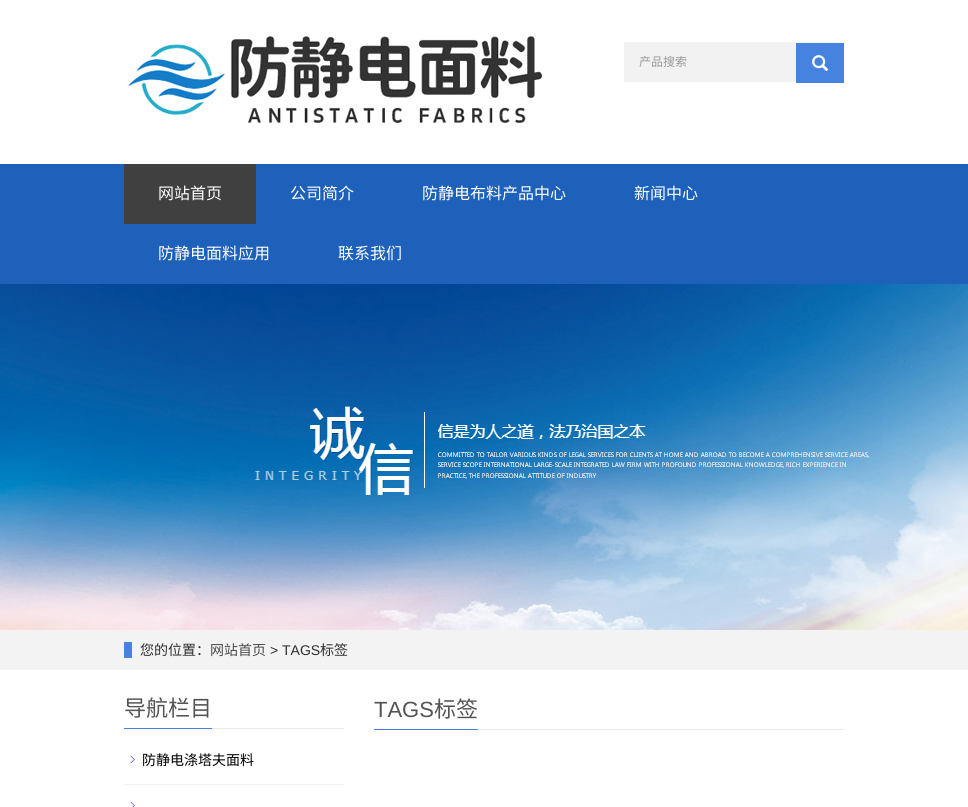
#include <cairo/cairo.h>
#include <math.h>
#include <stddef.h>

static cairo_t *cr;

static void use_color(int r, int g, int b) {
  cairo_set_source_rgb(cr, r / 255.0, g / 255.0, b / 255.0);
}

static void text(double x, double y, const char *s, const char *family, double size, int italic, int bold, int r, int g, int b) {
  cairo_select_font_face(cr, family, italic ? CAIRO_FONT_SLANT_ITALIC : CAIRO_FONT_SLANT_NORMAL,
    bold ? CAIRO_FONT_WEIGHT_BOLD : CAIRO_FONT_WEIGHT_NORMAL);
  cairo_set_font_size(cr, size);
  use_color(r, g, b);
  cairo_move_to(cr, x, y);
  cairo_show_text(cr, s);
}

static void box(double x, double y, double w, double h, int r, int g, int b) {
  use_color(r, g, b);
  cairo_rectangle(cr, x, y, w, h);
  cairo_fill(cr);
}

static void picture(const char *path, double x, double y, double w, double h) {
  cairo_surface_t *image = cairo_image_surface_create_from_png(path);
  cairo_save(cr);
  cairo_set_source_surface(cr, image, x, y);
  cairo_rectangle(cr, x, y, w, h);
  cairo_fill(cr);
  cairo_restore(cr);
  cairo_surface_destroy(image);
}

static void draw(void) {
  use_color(255, 255, 255);
  cairo_paint(cr);
  picture("img_01.png", 128, 36, 414, 87);
  box(624, 42, 220, 40, 242, 242, 242);
  box(796, 43, 48, 40, 70, 130, 224);
  picture("img_02.png", 812, 55, 17, 17);
  box(0, 164, 968, 120, 30, 97, 186);
  box(124, 164, 132, 60, 64, 64, 64);
  picture("img_03.png", 0, 284, 968, 346);
  box(0, 630, 968, 40, 243, 243, 243);
  box(124, 642, 8, 16, 69, 130, 226);
  box(212, 728, 132, 1, 235, 235, 235);
  box(124, 728, 88, 1, 69, 130, 226);
  picture("img_04.png", 130, 756, 5, 7);
  box(124, 784, 220, 1, 242, 242, 242);
  picture("img_05.png", 130, 802, 5, 5);
  box(478, 729, 366, 1, 235, 235, 235);
  box(374, 729, 104, 1, 69, 130, 226);
  text(639, 66, "产品搜索", "Noto Sans CJK SC", 12, 0, 0, 153, 153, 153);
  text(158, 199, "网站首页", "Noto Sans CJK SC", 16, 0, 0, 255, 255, 255);
  text(290, 199, "公司简介", "Noto Sans CJK SC", 16, 0, 0, 255, 255, 255);
  text(422, 199, "防静电布料产品中心", "Noto Sans CJK SC", 16, 0, 0, 255, 255, 255);
  text(634, 199, "新闻中心", "Noto Sans CJK SC", 16, 0, 0, 255, 255, 255);
  text(158, 259, "防静电面料应用", "Noto Sans CJK SC", 16, 0, 0, 255, 255, 255);
  text(338, 259, "联系我们", "Noto Sans CJK SC", 16, 0, 0, 255, 255, 255);
  text(140, 655, "您的位置：", "Noto Sans CJK SC", 14, 0, 0, 47, 47, 47);
  text(210, 655, "网站首页", "Noto Sans CJK SC", 14, 0, 0, 76, 76, 76);
  text(270, 655, "> TAGS", "Liberation Sans", 14, 0, 0, 47, 47, 47);
  text(320, 655, "标签", "Noto Sans CJK SC", 14, 0, 0, 47, 47, 47);
  text(124, 716, "导航栏目", "Noto Sans CJK SC", 22, 0, 0, 84, 84, 84);
  text(142, 765, "防静电涤塔夫面料", "Noto Sans CJK SC", 14, 0, 0, 0, 0, 0);
  text(374, 717, "TAGS", "Liberation Sans", 22, 0, 0, 84, 84, 84);
  text(434, 717, "标签", "Noto Sans CJK SC", 22, 0, 0, 84, 84, 84);
}

int main(void) {
  cairo_surface_t *surface = cairo_image_surface_create(CAIRO_FORMAT_RGB24, 968, 807);
  cr = cairo_create(surface);
  cairo_font_options_t *options = cairo_font_options_create();
  cairo_font_options_set_hint_metrics(options, CAIRO_HINT_METRICS_OFF);
  cairo_font_options_set_hint_style(options, CAIRO_HINT_STYLE_NONE);
  cairo_set_font_options(cr, options);
  cairo_set_miter_limit(cr, 4);
  draw();
  cairo_surface_write_to_png(surface, "out.png");
  cairo_font_options_destroy(options);
  cairo_destroy(cr);
  cairo_surface_destroy(surface);
  return 0;
}
